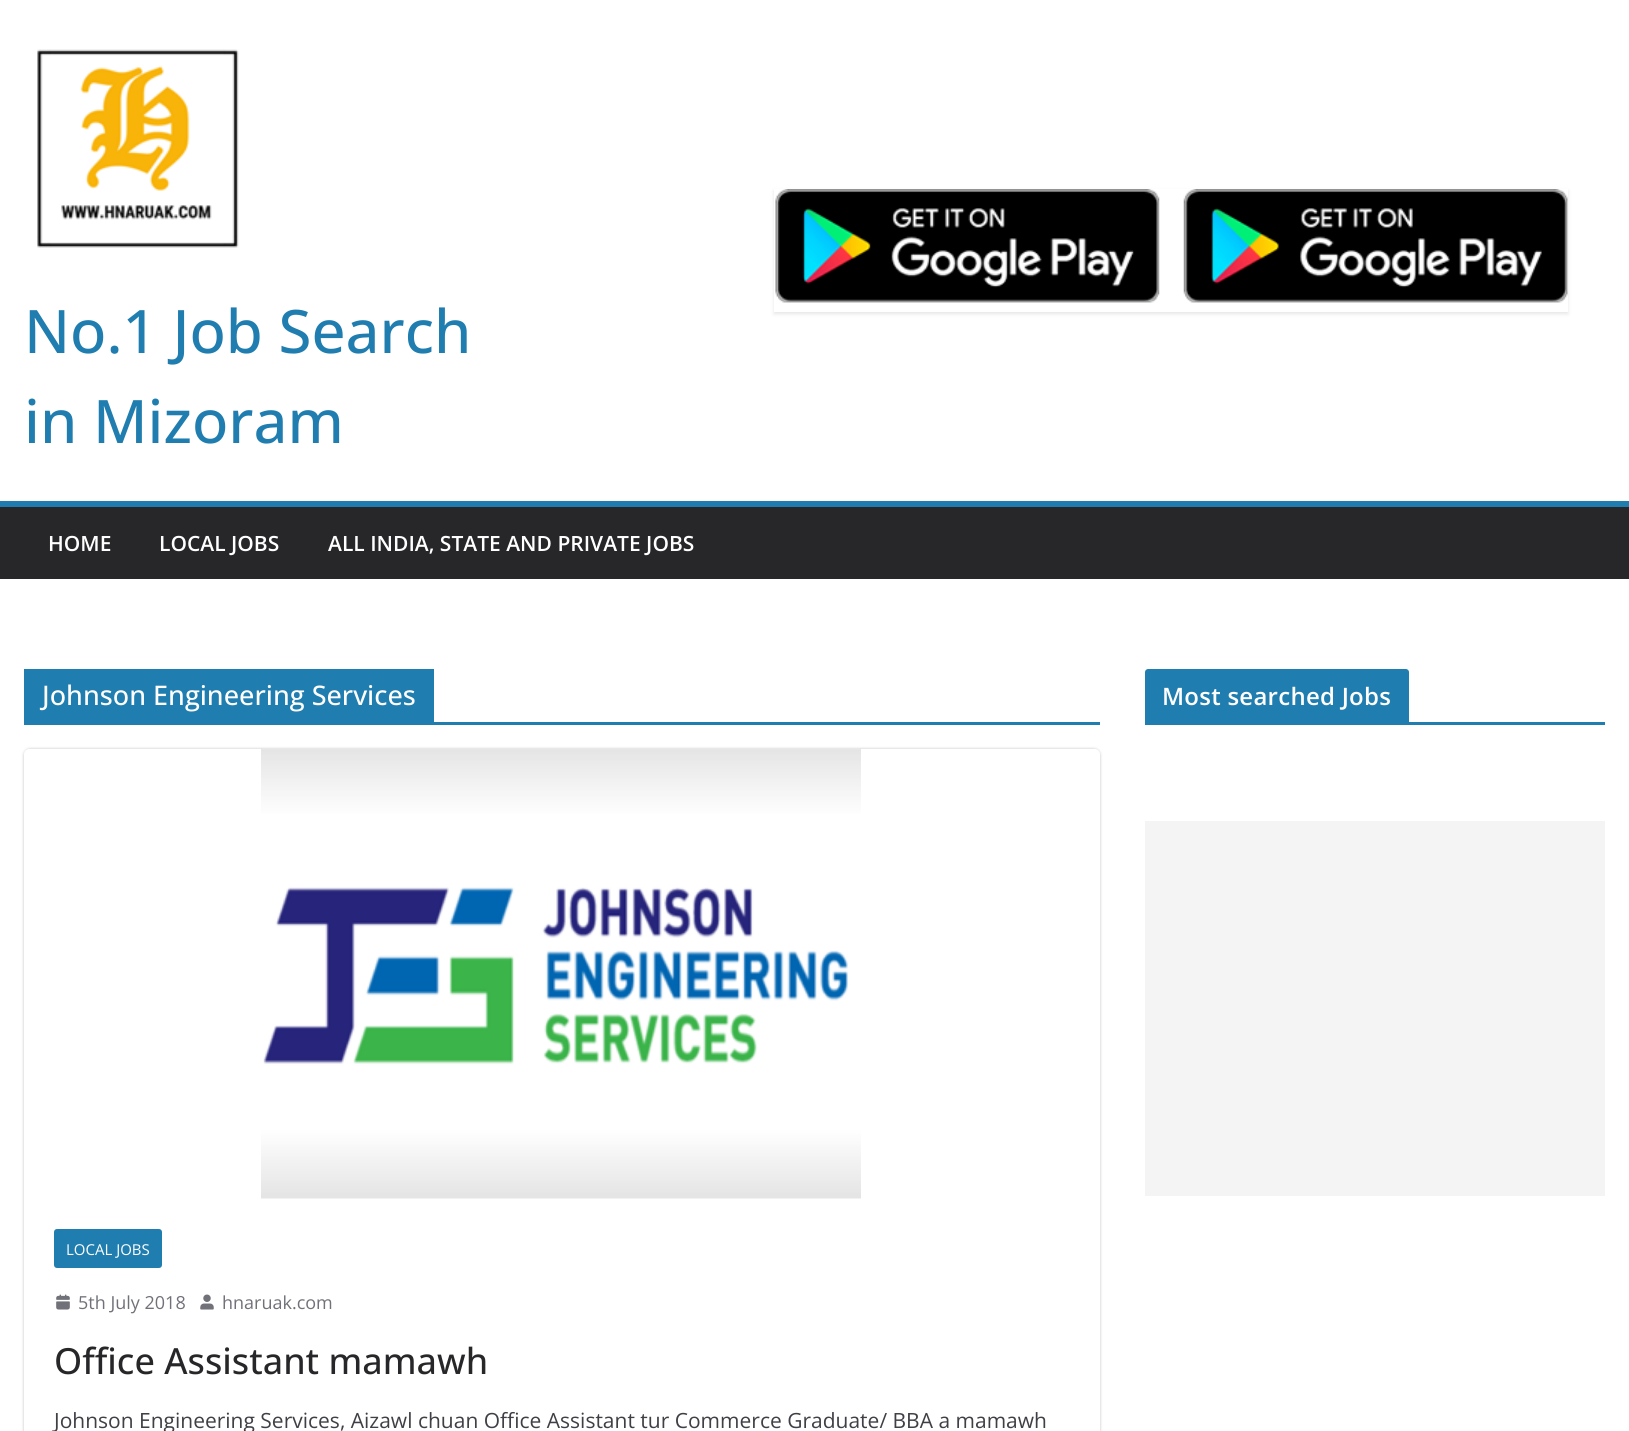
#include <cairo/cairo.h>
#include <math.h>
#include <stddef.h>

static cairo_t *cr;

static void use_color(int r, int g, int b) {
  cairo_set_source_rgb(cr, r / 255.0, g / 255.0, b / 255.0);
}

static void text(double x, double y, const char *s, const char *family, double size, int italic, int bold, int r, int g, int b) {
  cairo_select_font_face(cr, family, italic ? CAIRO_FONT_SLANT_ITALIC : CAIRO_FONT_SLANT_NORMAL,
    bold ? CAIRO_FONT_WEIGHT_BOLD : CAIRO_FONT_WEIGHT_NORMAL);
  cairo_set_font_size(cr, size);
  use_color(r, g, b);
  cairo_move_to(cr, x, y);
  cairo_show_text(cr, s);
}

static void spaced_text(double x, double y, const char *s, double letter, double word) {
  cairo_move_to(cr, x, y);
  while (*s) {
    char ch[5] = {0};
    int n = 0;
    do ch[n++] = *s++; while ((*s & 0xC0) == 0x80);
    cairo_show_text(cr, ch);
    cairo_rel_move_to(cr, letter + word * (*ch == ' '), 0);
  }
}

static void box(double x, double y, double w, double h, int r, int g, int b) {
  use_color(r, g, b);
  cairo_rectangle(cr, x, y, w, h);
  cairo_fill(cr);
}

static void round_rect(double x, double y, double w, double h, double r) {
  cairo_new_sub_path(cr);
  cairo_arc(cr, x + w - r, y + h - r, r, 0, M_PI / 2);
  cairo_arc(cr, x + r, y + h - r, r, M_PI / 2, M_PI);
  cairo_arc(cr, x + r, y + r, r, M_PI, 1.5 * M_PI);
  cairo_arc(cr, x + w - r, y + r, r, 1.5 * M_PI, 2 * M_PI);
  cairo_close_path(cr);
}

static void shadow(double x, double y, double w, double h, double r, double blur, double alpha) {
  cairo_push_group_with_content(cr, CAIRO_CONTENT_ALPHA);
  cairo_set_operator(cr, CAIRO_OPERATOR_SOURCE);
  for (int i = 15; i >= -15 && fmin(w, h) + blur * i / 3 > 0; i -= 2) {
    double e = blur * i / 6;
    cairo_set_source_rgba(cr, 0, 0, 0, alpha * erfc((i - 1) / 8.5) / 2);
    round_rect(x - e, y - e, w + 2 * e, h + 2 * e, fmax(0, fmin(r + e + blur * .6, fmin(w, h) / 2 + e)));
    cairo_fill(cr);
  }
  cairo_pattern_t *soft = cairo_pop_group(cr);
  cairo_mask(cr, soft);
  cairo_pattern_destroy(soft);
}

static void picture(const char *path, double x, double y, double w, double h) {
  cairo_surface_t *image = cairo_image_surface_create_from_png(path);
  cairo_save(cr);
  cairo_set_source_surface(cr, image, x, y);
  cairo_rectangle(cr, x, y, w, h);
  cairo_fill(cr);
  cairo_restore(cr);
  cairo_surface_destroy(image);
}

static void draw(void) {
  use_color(255, 255, 255);
  cairo_paint(cr);
  cairo_save(cr);
  cairo_set_fill_rule(cr, CAIRO_FILL_RULE_EVEN_ODD);
  cairo_new_path(cr);
  cairo_move_to(cr, 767, 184);
  cairo_line_to(cr, 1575, 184);
  cairo_line_to(cr, 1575, 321);
  cairo_line_to(cr, 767, 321);
  cairo_close_path(cr);
  cairo_move_to(cr, 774, 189);
  cairo_line_to(cr, 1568, 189);
  cairo_line_to(cr, 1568, 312);
  cairo_line_to(cr, 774, 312);
  cairo_close_path(cr);
  cairo_clip(cr);
  use_color(0, 0, 0);
  shadow(774, 191, 794, 123, 0, 2, 0.1);
  cairo_restore(cr);
  picture("img_01.png", 775, 189, 793, 114);
  picture("img_02.png", 37, 49, 202, 199);
  box(0, 507, 1629, 72, 39, 39, 42);
  box(0, 501, 1629, 6, 32, 125, 175);
  box(24, 722, 1076, 3, 32, 125, 175);
  box(24, 669, 410, 53, 32, 125, 175);
  cairo_save(cr);
  cairo_set_fill_rule(cr, CAIRO_FILL_RULE_EVEN_ODD);
  cairo_new_path(cr);
  cairo_move_to(cr, 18, 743);
  cairo_line_to(cr, 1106, 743);
  cairo_line_to(cr, 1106, 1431);
  cairo_line_to(cr, 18, 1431);
  cairo_close_path(cr);
  cairo_move_to(cr, 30, 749);
  cairo_line_to(cr, 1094, 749);
  cairo_curve_to(cr, 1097.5, 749, 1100, 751.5, 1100, 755);
  cairo_line_to(cr, 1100, 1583);
  cairo_curve_to(cr, 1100, 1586.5, 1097.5, 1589, 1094, 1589);
  cairo_line_to(cr, 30, 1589);
  cairo_curve_to(cr, 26.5, 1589, 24, 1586.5, 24, 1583);
  cairo_line_to(cr, 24, 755);
  cairo_curve_to(cr, 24, 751.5, 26.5, 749, 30, 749);
  cairo_close_path(cr);
  cairo_clip(cr);
  use_color(0, 0, 0);
  shadow(24, 749, 1076, 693, 6, 1.5, 0.24);
  cairo_restore(cr);
  picture("img_03.png", 261, 748, 600, 451);
  round_rect(54, 1229, 108, 39, 3);
  cairo_fill(cr);
  picture("img_04.png", 56, 1294, 14, 16);
  picture("img_05.png", 200, 1294, 14, 16);
  box(1145, 722, 460, 3, 32, 125, 175);
  cairo_new_path(cr);
  cairo_move_to(cr, 1148, 669);
  cairo_line_to(cr, 1406, 669);
  cairo_curve_to(cr, 1407.5, 669, 1409, 670.5, 1409, 672);
  cairo_line_to(cr, 1409, 722);
  cairo_line_to(cr, 1145, 722);
  cairo_line_to(cr, 1145, 672);
  cairo_curve_to(cr, 1145, 670.5, 1146.5, 669, 1148, 669);
  cairo_close_path(cr);
  cairo_fill(cr);
  box(1145, 821, 460, 375, 244, 244, 245);
  text(24, 353, "No.1 Job Search", "Open Sans Medium", 60, 0, 0, 32, 125, 175);
  text(24, 443, "in Mizoram", "Open Sans Medium", 60, 0, 0, 32, 125, 175);
  text(48, 551, "HOME", "Open Sans SemiBold", 21, 0, 0, 255, 255, 255);
  text(159, 551, "LOCAL JOBS", "Open Sans SemiBold", 21, 0, 0, 255, 255, 255);
  text(328, 551, "ALL INDIA, STATE AND PRIVATE JOBS", "Open Sans SemiBold", 21, 0, 0, 255, 255, 255);
  text(42, 705, "Johnson Engineering Services", "Open Sans Medium", 27, 0, 0, 255, 255, 255);
  text(66, 1255, "LOCAL JOBS", "Open Sans", 15, 0, 0, 255, 255, 255);
  text(78, 1309, "5th July 2018", "Open Sans", 18, 0, 0, 113, 113, 122);
  text(222, 1309, "hnaruak.com", "Open Sans", 18, 0, 0, 113, 113, 122);
  text(54, 1374, "Office Assistant mamawh", "Open Sans Medium", 36, 0, 0, 39, 39, 42);
  text(54, 1428, "Johnson Engineering Services, Aizawl chuan Office Assistant tur Commerce Graduate/ BBA a mamawh", "Open Sans", 21, 0, 0, 63, 63, 70);
  cairo_select_font_face(cr, "Open Sans SemiBold", CAIRO_FONT_SLANT_NORMAL, CAIRO_FONT_WEIGHT_NORMAL);
  cairo_set_font_size(cr, 24);
  use_color(255, 255, 255);
  spaced_text(1162, 705, "Most searched Jobs", 0.25, 0);
}

int main(void) {
  cairo_surface_t *surface = cairo_image_surface_create(CAIRO_FORMAT_RGB24, 1629, 1431);
  cr = cairo_create(surface);
  cairo_font_options_t *options = cairo_font_options_create();
  cairo_font_options_set_hint_metrics(options, CAIRO_HINT_METRICS_OFF);
  cairo_font_options_set_hint_style(options, CAIRO_HINT_STYLE_NONE);
  cairo_set_font_options(cr, options);
  cairo_set_miter_limit(cr, 4);
  draw();
  cairo_surface_write_to_png(surface, "out.png");
  cairo_font_options_destroy(options);
  cairo_destroy(cr);
  cairo_surface_destroy(surface);
  return 0;
}
